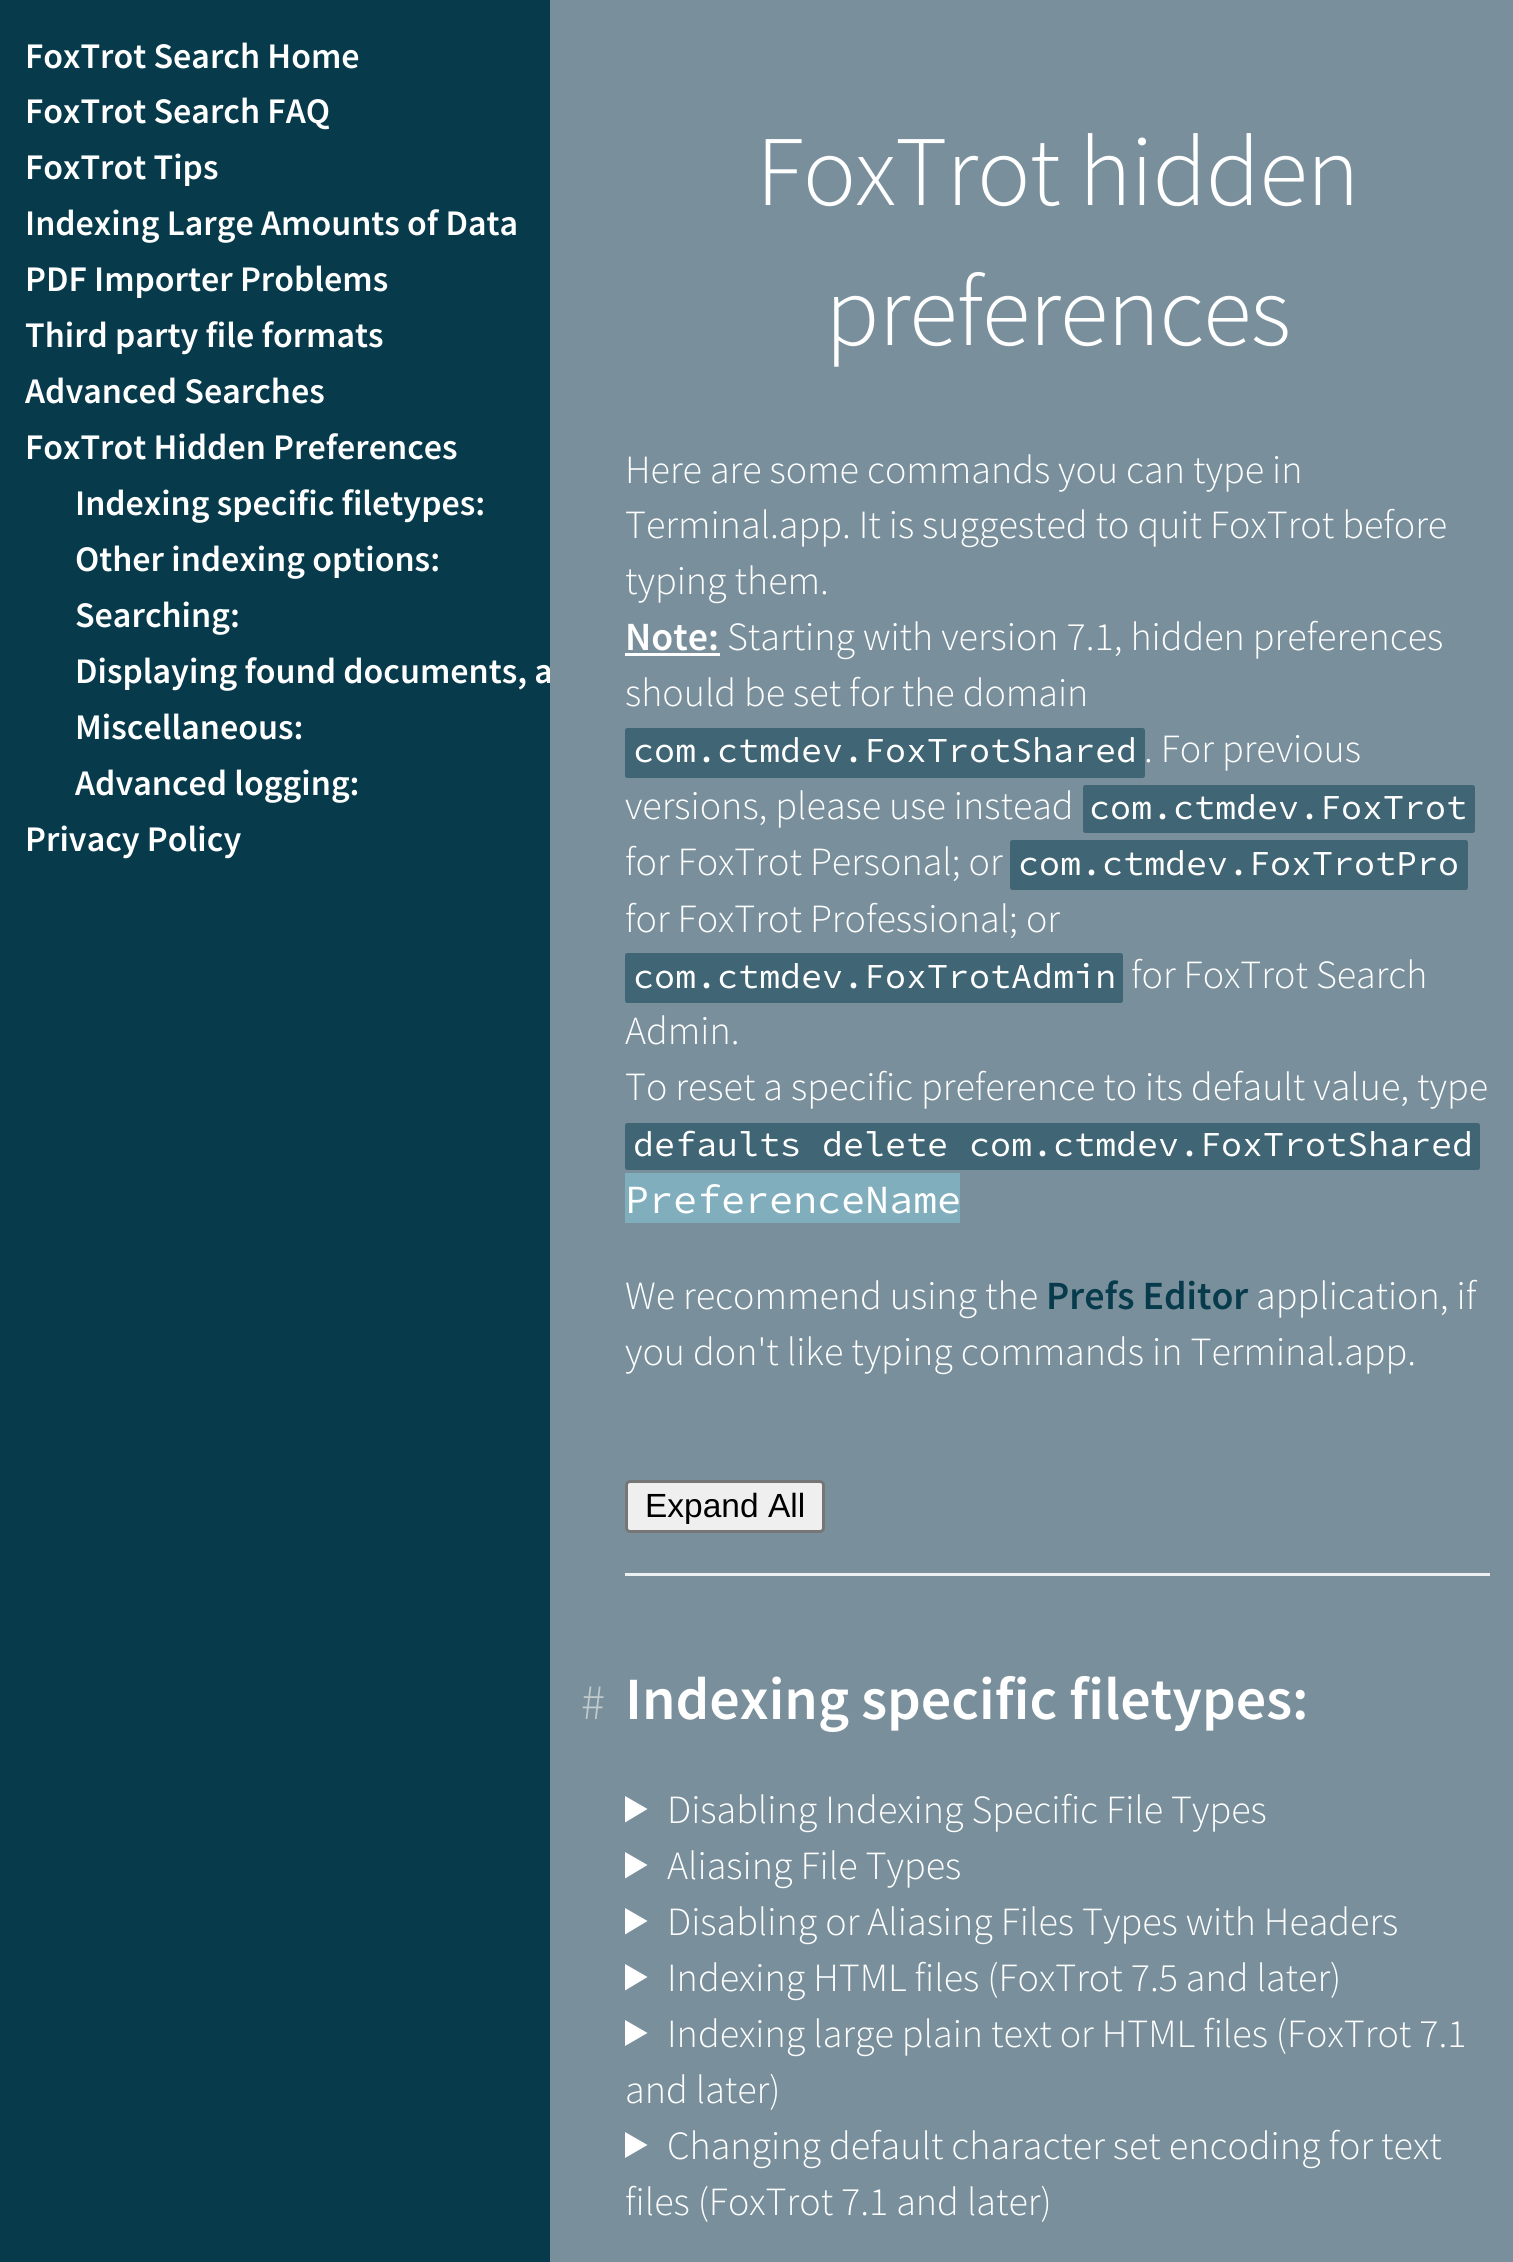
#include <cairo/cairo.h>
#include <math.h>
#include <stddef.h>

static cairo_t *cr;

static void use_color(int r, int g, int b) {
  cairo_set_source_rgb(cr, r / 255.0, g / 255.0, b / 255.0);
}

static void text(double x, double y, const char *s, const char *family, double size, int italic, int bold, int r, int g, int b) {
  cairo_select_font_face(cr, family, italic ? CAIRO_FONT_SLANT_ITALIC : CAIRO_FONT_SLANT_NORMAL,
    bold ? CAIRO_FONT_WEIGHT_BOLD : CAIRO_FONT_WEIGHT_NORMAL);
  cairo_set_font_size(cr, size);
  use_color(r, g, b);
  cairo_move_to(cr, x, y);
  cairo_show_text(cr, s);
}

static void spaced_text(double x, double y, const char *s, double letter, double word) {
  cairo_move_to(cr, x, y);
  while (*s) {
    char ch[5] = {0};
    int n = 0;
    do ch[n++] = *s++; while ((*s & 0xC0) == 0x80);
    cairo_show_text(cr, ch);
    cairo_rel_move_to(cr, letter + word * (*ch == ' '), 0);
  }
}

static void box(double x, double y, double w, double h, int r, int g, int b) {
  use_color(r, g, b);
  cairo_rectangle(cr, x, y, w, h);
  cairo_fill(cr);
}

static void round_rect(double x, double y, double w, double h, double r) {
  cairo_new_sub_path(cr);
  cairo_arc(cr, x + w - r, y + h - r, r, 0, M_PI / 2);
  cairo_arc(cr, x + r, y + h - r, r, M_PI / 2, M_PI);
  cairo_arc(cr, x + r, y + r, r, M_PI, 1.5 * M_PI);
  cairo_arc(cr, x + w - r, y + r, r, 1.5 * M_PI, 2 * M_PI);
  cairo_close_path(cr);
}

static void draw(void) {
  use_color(121, 144, 156);
  cairo_paint(cr);
  box(0, 0, 550, 2262, 7, 59, 76);
  box(625, 653, 95, 3, 255, 255, 255);
  use_color(64, 101, 116);
  round_rect(625, 728, 520, 50, 2.5);
  cairo_fill(cr);
  round_rect(1083, 785, 392, 48, 2.5);
  cairo_fill(cr);
  round_rect(1010, 840, 458, 50, 2.5);
  cairo_fill(cr);
  round_rect(625, 953, 498, 50, 2.5);
  cairo_fill(cr);
  round_rect(625, 1123, 855, 47, 2.5);
  cairo_fill(cr);
  box(625, 1173, 335, 50, 128, 174, 189);
  use_color(239, 239, 239);
  round_rect(626.5, 1481.5, 197, 50, 3.5);
  cairo_fill_preserve(cr);
  use_color(118, 118, 118);
  cairo_set_line_width(cr, 3);
  cairo_stroke(cr);
  box(625, 1573, 865, 3, 236, 240, 241);
  use_color(255, 255, 255);
  cairo_new_path(cr);
  cairo_move_to(cr, 625, 1796);
  cairo_line_to(cr, 647.5, 1809);
  cairo_line_to(cr, 625, 1822.5);
  cairo_close_path(cr);
  cairo_fill(cr);
  cairo_new_path(cr);
  cairo_move_to(cr, 625, 1852);
  cairo_line_to(cr, 647.5, 1865);
  cairo_line_to(cr, 625, 1878.5);
  cairo_close_path(cr);
  cairo_fill(cr);
  cairo_new_path(cr);
  cairo_move_to(cr, 625, 1908);
  cairo_line_to(cr, 647.5, 1921);
  cairo_line_to(cr, 625, 1934.5);
  cairo_close_path(cr);
  cairo_fill(cr);
  cairo_new_path(cr);
  cairo_move_to(cr, 625, 1964);
  cairo_line_to(cr, 647.5, 1977);
  cairo_line_to(cr, 625, 1990.5);
  cairo_close_path(cr);
  cairo_fill(cr);
  cairo_new_path(cr);
  cairo_move_to(cr, 625, 2020);
  cairo_line_to(cr, 647.5, 2033);
  cairo_line_to(cr, 625, 2046);
  cairo_close_path(cr);
  cairo_fill(cr);
  cairo_new_path(cr);
  cairo_move_to(cr, 625, 2132);
  cairo_line_to(cr, 647.5, 2145);
  cairo_line_to(cr, 625, 2158);
  cairo_close_path(cr);
  cairo_fill(cr);
  text(25, 68, "FoxTrot Search Home", "Source Sans Pro SemiBold", 36, 0, 0, 255, 255, 255);
  text(25, 123, "FoxTrot Search FAQ", "Source Sans Pro SemiBold", 36, 0, 0, 255, 255, 255);
  text(25, 179, "FoxTrot Tips", "Source Sans Pro SemiBold", 36, 0, 0, 255, 255, 255);
  text(25, 235, "Indexing Large Amounts of Data", "Source Sans Pro SemiBold", 36, 0, 0, 255, 255, 255);
  text(25, 291, "PDF Importer Problems", "Source Sans Pro SemiBold", 36, 0, 0, 255, 255, 255);
  text(25, 347, "Third party file formats", "Source Sans Pro SemiBold", 36, 0, 0, 255, 255, 255);
  text(25, 403, "Advanced Searches", "Source Sans Pro SemiBold", 36, 0, 0, 255, 255, 255);
  text(25, 459, "FoxTrot Hidden Preferences", "Source Sans Pro SemiBold", 36, 0, 0, 255, 255, 255);
  text(75, 515, "Indexing specific filetypes:", "Source Sans Pro SemiBold", 36, 0, 0, 255, 255, 255);
  text(75, 571, "Other indexing options:", "Source Sans Pro SemiBold", 36, 0, 0, 255, 255, 255);
  text(75, 627, "Searching:", "Source Sans Pro SemiBold", 36, 0, 0, 255, 255, 255);
  cairo_save(cr);
  cairo_rectangle(cr, 0, 0, 550, 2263);
  cairo_clip(cr);
  text(75, 683, "Displaying found documents, a", "Source Sans Pro SemiBold", 36, 0, 0, 255, 255, 255);
  cairo_restore(cr);
  text(75, 739, "Miscellaneous:", "Source Sans Pro SemiBold", 36, 0, 0, 255, 255, 255);
  text(75, 795, "Advanced logging:", "Source Sans Pro SemiBold", 36, 0, 0, 255, 255, 255);
  text(25, 851, "Privacy Policy", "Source Sans Pro SemiBold", 36, 0, 0, 255, 255, 255);
  cairo_select_font_face(cr, "Source Sans Pro Light", CAIRO_FONT_SLANT_NORMAL, CAIRO_FONT_WEIGHT_NORMAL);
  cairo_set_font_size(cr, 100);
  spaced_text(756, 205, "FoxTrot hidden", -1, 0);
  spaced_text(825, 345, "preferences", -1, 0);
  text(625, 483, "Here are some commands you can type in", "Source Sans Pro Light", 40, 0, 0, 255, 255, 255);
  text(625, 538, "Terminal.app. It is suggested to quit FoxTrot before", "Source Sans Pro Light", 40, 0, 0, 255, 255, 255);
  text(625, 594, "typing them.", "Source Sans Pro Light", 40, 0, 0, 255, 255, 255);
  text(625, 650, "Note:", "Source Sans Pro SemiBold", 40, 0, 0, 255, 255, 255);
  text(727, 650, "Starting with version 7.1, hidden preferences", "Source Sans Pro Light", 40, 0, 0, 255, 255, 255);
  text(625, 706, "should be set for the domain", "Source Sans Pro Light", 40, 0, 0, 255, 255, 255);
  text(633, 762, "com.ctmdev.FoxTrotShared", "Source Code Pro", 35, 0, 0, 255, 255, 255);
  text(1144, 762, ". For previous", "Source Sans Pro Light", 40, 0, 0, 255, 255, 255);
  text(625, 819, "versions, please use instead", "Source Sans Pro Light", 40, 0, 0, 255, 255, 255);
  text(1089, 819, "com.ctmdev.FoxTrot", "Source Code Pro", 35, 0, 0, 255, 255, 255);
  text(625, 875, "for FoxTrot Personal; or", "Source Sans Pro Light", 40, 0, 0, 255, 255, 255);
  text(1018, 875, "com.ctmdev.FoxTrotPro", "Source Code Pro", 35, 0, 0, 255, 255, 255);
  text(625, 932, "for FoxTrot Professional; or", "Source Sans Pro Light", 40, 0, 0, 255, 255, 255);
  text(633, 988, "com.ctmdev.FoxTrotAdmin", "Source Code Pro", 35, 0, 0, 255, 255, 255);
  text(1131, 988, "for FoxTrot Search", "Source Sans Pro Light", 40, 0, 0, 255, 255, 255);
  text(625, 1044, "Admin.", "Source Sans Pro Light", 40, 0, 0, 255, 255, 255);
  text(625, 1100, "To reset a specific preference to its default value, type", "Source Sans Pro Light", 40, 0, 0, 255, 255, 255);
  text(633, 1156, "defaults delete com.ctmdev.FoxTrotShared", "Source Code Pro", 35, 0, 0, 255, 255, 255);
  text(625, 1213, "PreferenceName", "Source Code Pro", 40, 0, 0, 255, 255, 255);
  text(625, 1309, "We recommend using the", "Source Sans Pro Light", 40, 0, 0, 255, 255, 255);
  text(1046, 1309, "Prefs Editor", "Source Sans Pro SemiBold", 40, 0, 0, 7, 59, 76);
  text(1256, 1309, "application, if", "Source Sans Pro Light", 40, 0, 0, 255, 255, 255);
  text(625, 1365, "you don't like typing commands in Terminal.app.", "Source Sans Pro Light", 40, 0, 0, 255, 255, 255);
  text(645, 1517, "Expand All", "Liberation Sans", 33.5, 0, 0, 0, 0, 0);
  text(581, 1719, "#", "Source Sans Pro Light", 50, 0, 0, 193, 202, 204);
  text(625, 1719, "Indexing specific filetypes:", "Source Sans Pro SemiBold", 60, 0, 0, 255, 255, 255);
  text(667, 1823, "Disabling Indexing Specific File Types", "Source Sans Pro Light", 40, 0, 0, 255, 255, 255);
  text(667, 1879, "Aliasing File Types", "Source Sans Pro Light", 40, 0, 0, 255, 255, 255);
  text(667, 1935, "Disabling or Aliasing Files Types with Headers", "Source Sans Pro Light", 40, 0, 0, 255, 255, 255);
  text(667, 1991, "Indexing HTML files (FoxTrot 7.5 and later)", "Source Sans Pro Light", 40, 0, 0, 255, 255, 255);
  text(667, 2047, "Indexing large plain text or HTML files (FoxTrot 7.1", "Source Sans Pro Light", 40, 0, 0, 255, 255, 255);
  text(625, 2103, "and later)", "Source Sans Pro Light", 40, 0, 0, 255, 255, 255);
  text(667, 2159, "Changing default character set encoding for text", "Source Sans Pro Light", 40, 0, 0, 255, 255, 255);
  text(625, 2215, "files (FoxTrot 7.1 and later)", "Source Sans Pro Light", 40, 0, 0, 255, 255, 255);
}

int main(void) {
  cairo_surface_t *surface = cairo_image_surface_create(CAIRO_FORMAT_RGB24, 1513, 2262);
  cr = cairo_create(surface);
  cairo_font_options_t *options = cairo_font_options_create();
  cairo_font_options_set_hint_metrics(options, CAIRO_HINT_METRICS_OFF);
  cairo_font_options_set_hint_style(options, CAIRO_HINT_STYLE_NONE);
  cairo_set_font_options(cr, options);
  cairo_set_miter_limit(cr, 4);
  draw();
  cairo_surface_write_to_png(surface, "out.png");
  cairo_font_options_destroy(options);
  cairo_destroy(cr);
  cairo_surface_destroy(surface);
  return 0;
}
